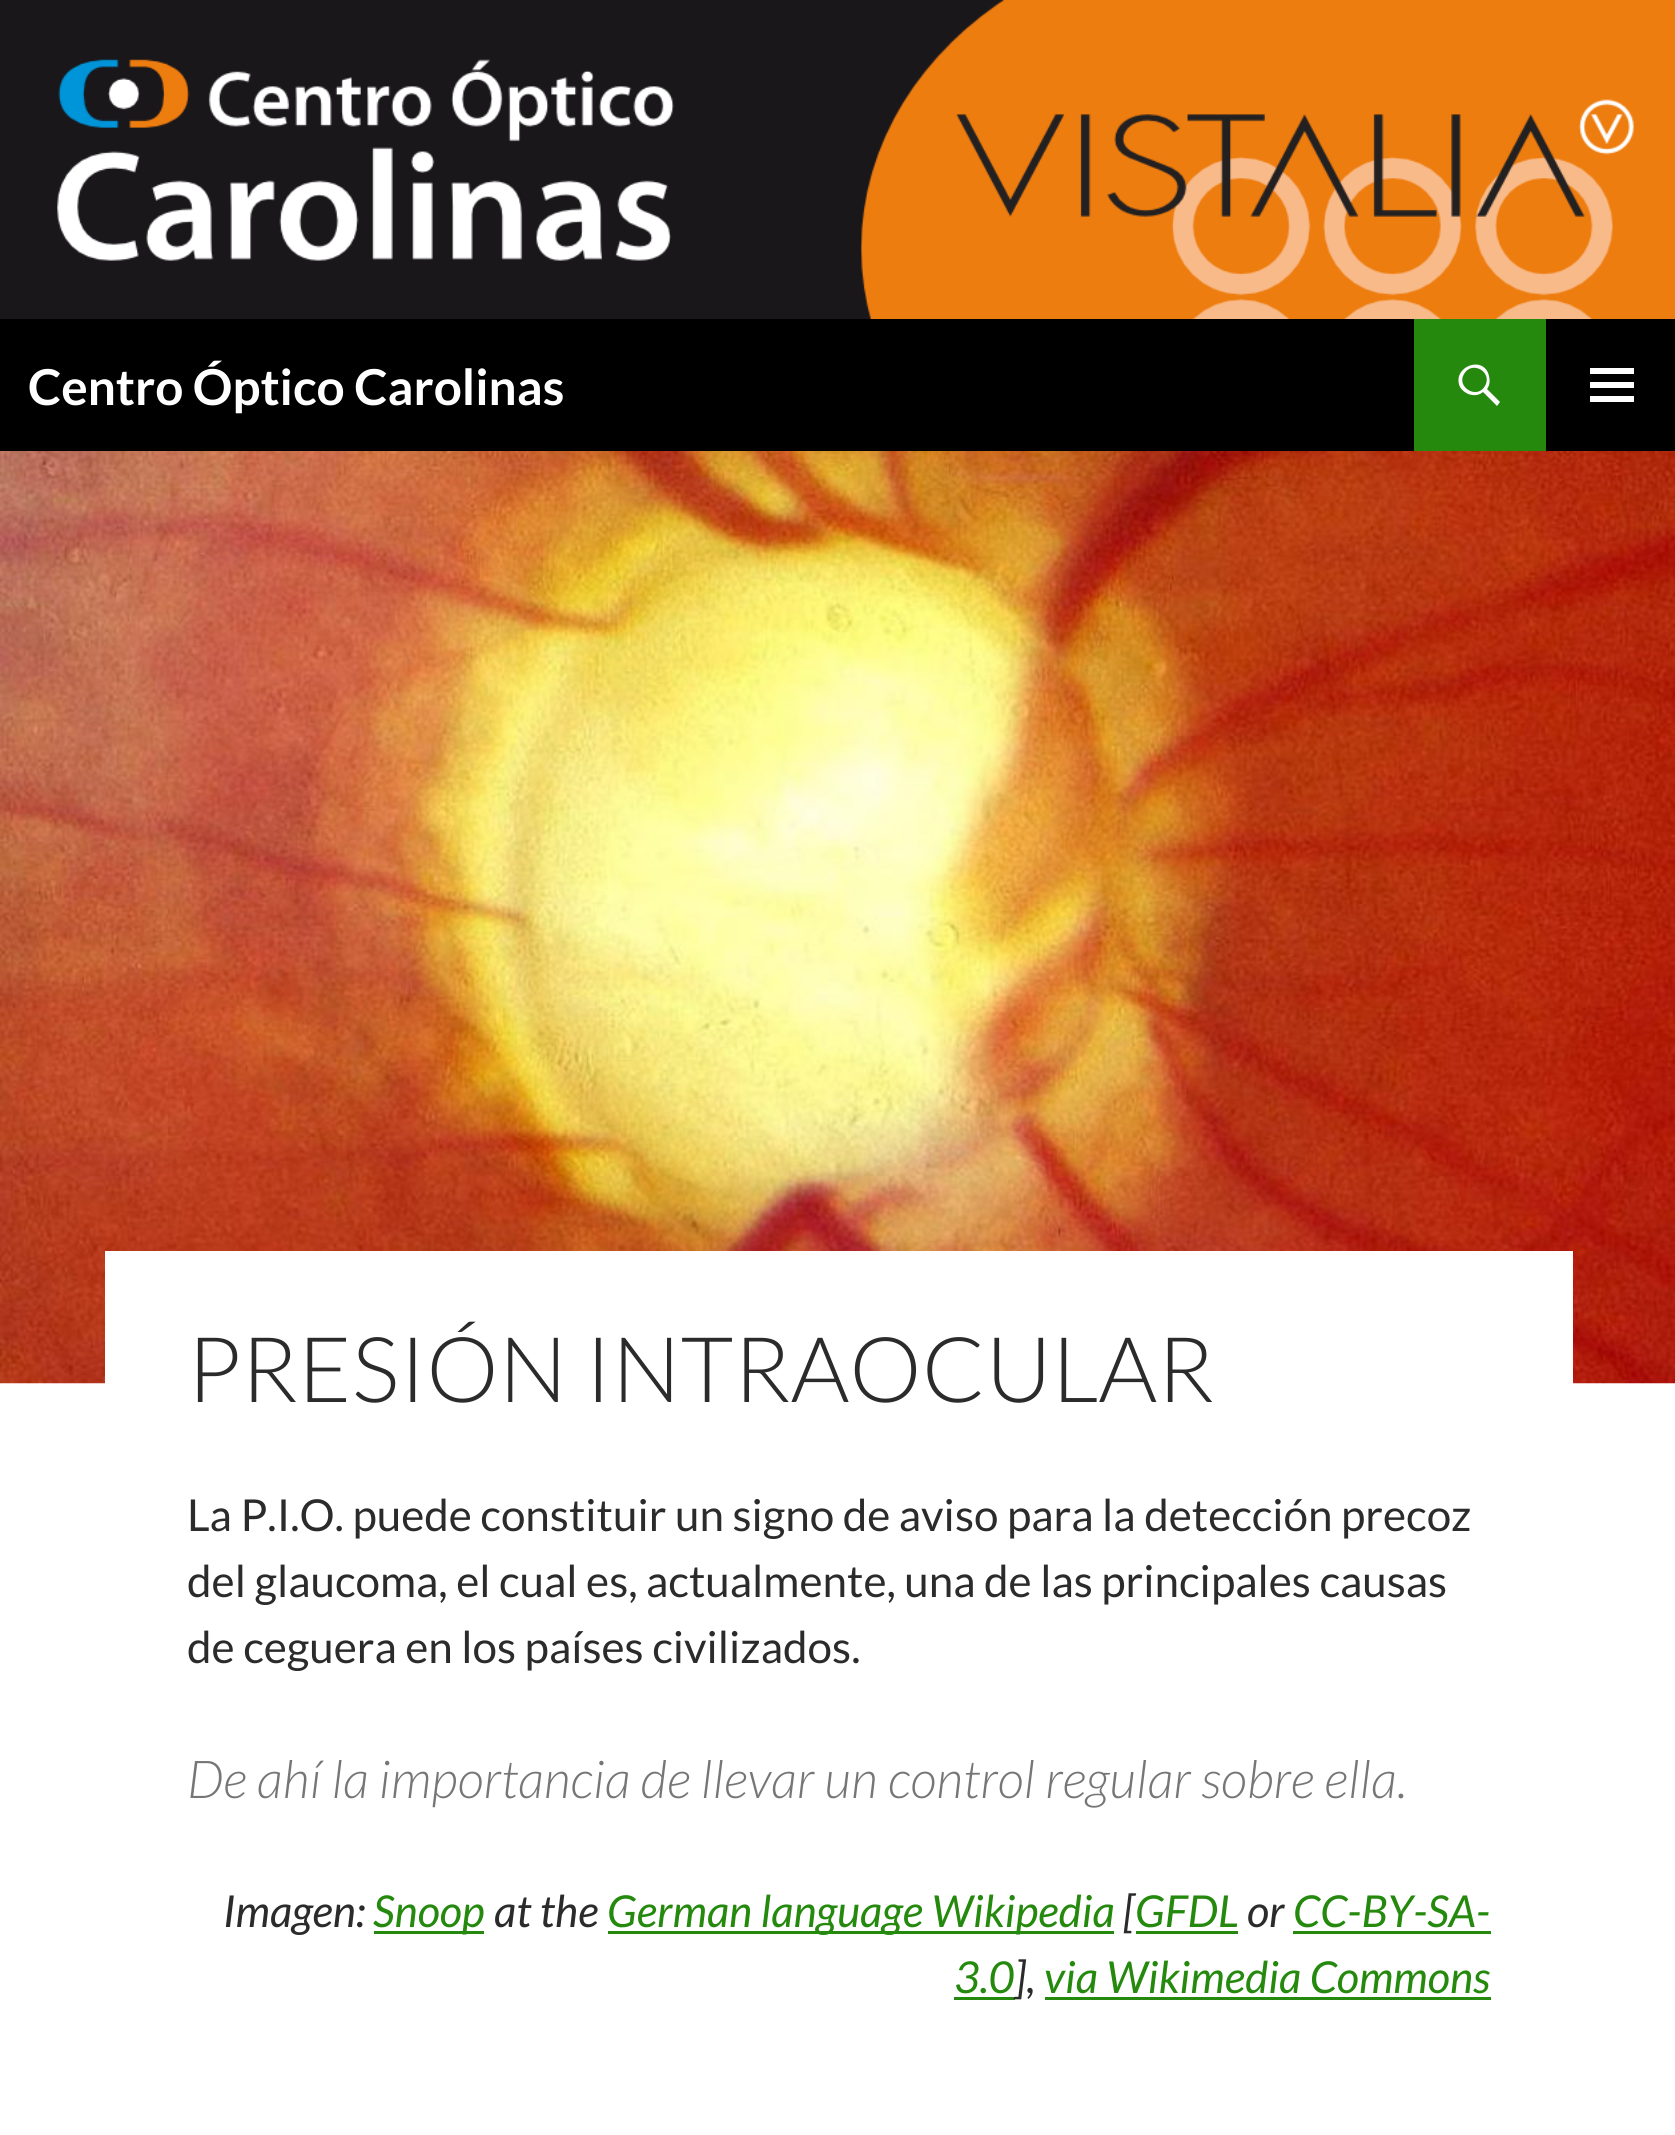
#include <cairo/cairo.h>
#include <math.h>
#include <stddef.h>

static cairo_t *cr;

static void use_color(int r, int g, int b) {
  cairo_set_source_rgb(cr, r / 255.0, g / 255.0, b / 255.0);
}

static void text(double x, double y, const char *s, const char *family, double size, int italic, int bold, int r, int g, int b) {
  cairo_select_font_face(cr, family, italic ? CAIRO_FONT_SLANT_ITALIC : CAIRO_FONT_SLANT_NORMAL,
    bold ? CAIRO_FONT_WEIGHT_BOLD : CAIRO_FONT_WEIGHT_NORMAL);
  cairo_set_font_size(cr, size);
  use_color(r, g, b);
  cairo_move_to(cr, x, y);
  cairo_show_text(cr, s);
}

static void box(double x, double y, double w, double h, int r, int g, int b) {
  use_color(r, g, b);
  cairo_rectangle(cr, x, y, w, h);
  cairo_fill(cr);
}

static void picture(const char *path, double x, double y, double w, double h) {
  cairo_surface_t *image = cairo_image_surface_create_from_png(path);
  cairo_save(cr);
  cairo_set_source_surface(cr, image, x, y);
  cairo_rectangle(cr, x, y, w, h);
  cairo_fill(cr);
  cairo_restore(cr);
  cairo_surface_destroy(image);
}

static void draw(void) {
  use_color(255, 255, 255);
  cairo_paint(cr);
  picture("img_01.png", 0, 0, 1675, 319);
  box(0, 319, 1675, 132, 0, 0, 0);
  box(1414, 319, 132, 132, 36, 137, 13);
  use_color(255, 255, 255);
  cairo_new_path(cr);
  cairo_move_to(cr, 1500, 402);
  cairo_line_to(cr, 1497, 406);
  cairo_line_to(cr, 1483, 392);
  cairo_curve_to(cr, 1476, 398, 1465, 395, 1460, 387);
  cairo_curve_to(cr, 1451, 367, 1484, 354, 1489, 376);
  cairo_curve_to(cr, 1490, 380, 1490, 385, 1487, 389);
  cairo_close_path(cr);
  cairo_move_to(cr, 1464, 374);
  cairo_curve_to(cr, 1456, 387, 1477, 400, 1485, 386);
  cairo_curve_to(cr, 1493, 372, 1472, 360, 1464, 374);
  cairo_close_path(cr);
  cairo_fill(cr);
  cairo_new_path(cr);
  cairo_move_to(cr, 1590, 402);
  cairo_line_to(cr, 1590, 396);
  cairo_line_to(cr, 1634, 396);
  cairo_line_to(cr, 1634, 402);
  cairo_close_path(cr);
  cairo_move_to(cr, 1590, 368);
  cairo_line_to(cr, 1634, 368);
  cairo_line_to(cr, 1634, 374);
  cairo_line_to(cr, 1590, 374);
  cairo_close_path(cr);
  cairo_move_to(cr, 1590, 388);
  cairo_line_to(cr, 1590, 382);
  cairo_line_to(cr, 1634, 382);
  cairo_line_to(cr, 1634, 388);
  cairo_close_path(cr);
  cairo_fill(cr);
  picture("img_02.png", 0, 451, 1675, 933);
  box(105, 1251, 1468, 133, 255, 255, 255);
  box(374, 1931, 110, 3, 36, 137, 13);
  box(608, 1931, 506, 3, 36, 137, 13);
  box(1136, 1931, 102, 3, 36, 137, 13);
  box(1293, 1931, 198, 3, 36, 137, 13);
  box(954, 1997, 61, 3, 36, 137, 13);
  box(1045, 1997, 446, 3, 36, 137, 13);
  text(28, 405, "Centro Óptico Carolinas", "Lato", 49.5, 0, 1, 255, 255, 255);
  text(187, 1402, "PRESIÓN INTRAOCULAR", "Lato Light", 90.75, 0, 0, 43, 43, 43);
  text(187, 1531, "La P.I.O. puede constituir un signo de aviso para la detección precoz", "Lato", 44, 0, 0, 43, 43, 43);
  text(187, 1597, "del glaucoma, el cual es, actualmente, una de las principales causas", "Lato", 44, 0, 0, 43, 43, 43);
  text(187, 1663, "de ceguera en los países civilizados.", "Lato", 44, 0, 0, 43, 43, 43);
  text(187, 1798, "De ahí la importancia de llevar un control regular sobre ella.", "Lato Light", 52.25, 1, 0, 118, 118, 118);
  text(223, 1927, "Imagen:", "Lato", 44, 1, 0, 43, 43, 43);
  text(373, 1927, "Snoop", "Lato", 44, 1, 0, 36, 137, 13);
  text(494, 1927, "at the", "Lato", 44, 1, 0, 43, 43, 43);
  text(607, 1927, "German language Wikipedia", "Lato", 44, 1, 0, 36, 137, 13);
  text(1123, 1927, "[", "Lato", 44, 1, 0, 43, 43, 43);
  text(1135, 1927, "GFDL", "Lato", 44, 1, 0, 36, 137, 13);
  text(1247, 1927, "or", "Lato", 44, 1, 0, 43, 43, 43);
  text(1293, 1927, "CC-BY-SA-", "Lato", 44, 1, 0, 36, 137, 13);
  text(954, 1993, "3.0", "Lato", 44, 1, 0, 36, 137, 13);
  text(1014, 1993, "],", "Lato", 44, 1, 0, 43, 43, 43);
  text(1044, 1993, "via Wikimedia Commons", "Lato", 44, 1, 0, 36, 137, 13);
}

int main(void) {
  cairo_surface_t *surface = cairo_image_surface_create(CAIRO_FORMAT_RGB24, 1675, 2135);
  cr = cairo_create(surface);
  cairo_font_options_t *options = cairo_font_options_create();
  cairo_font_options_set_hint_metrics(options, CAIRO_HINT_METRICS_OFF);
  cairo_font_options_set_hint_style(options, CAIRO_HINT_STYLE_NONE);
  cairo_set_font_options(cr, options);
  cairo_set_miter_limit(cr, 4);
  draw();
  cairo_surface_write_to_png(surface, "out.png");
  cairo_font_options_destroy(options);
  cairo_destroy(cr);
  cairo_surface_destroy(surface);
  return 0;
}
